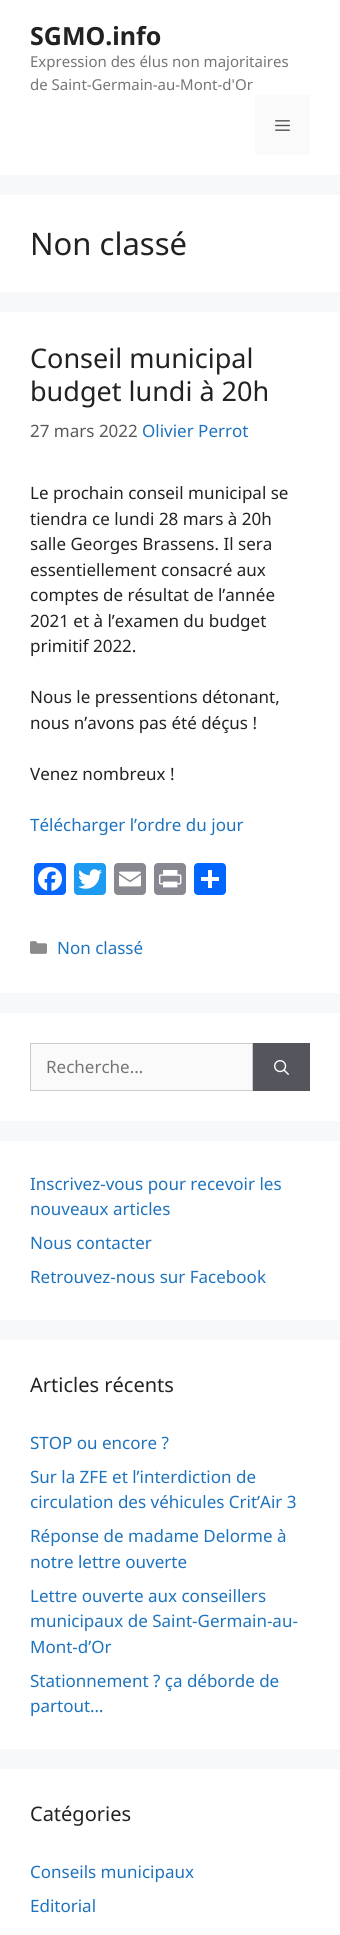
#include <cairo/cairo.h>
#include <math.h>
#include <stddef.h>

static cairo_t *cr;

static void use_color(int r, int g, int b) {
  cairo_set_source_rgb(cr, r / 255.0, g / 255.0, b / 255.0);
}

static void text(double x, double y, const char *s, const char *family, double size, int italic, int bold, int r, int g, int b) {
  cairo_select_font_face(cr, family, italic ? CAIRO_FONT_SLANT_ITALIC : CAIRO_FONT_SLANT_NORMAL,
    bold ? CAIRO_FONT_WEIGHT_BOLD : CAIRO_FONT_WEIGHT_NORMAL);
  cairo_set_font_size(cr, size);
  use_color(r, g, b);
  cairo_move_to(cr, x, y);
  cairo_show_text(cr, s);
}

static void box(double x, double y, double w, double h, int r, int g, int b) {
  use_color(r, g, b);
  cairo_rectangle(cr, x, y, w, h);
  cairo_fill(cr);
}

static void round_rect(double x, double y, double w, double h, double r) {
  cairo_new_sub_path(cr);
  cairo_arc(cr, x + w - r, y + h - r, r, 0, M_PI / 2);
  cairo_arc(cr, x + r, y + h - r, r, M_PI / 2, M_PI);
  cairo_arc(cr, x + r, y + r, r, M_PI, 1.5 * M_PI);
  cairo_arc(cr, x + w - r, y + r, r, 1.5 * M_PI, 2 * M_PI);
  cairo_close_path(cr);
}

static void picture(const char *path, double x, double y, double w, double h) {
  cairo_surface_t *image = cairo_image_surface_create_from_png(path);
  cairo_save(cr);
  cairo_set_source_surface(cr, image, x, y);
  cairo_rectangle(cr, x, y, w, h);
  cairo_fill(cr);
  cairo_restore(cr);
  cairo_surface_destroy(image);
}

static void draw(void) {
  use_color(247, 248, 249);
  cairo_paint(cr);
  box(0, 0, 340, 175, 255, 255, 255);
  box(255, 95, 55, 60, 250, 250, 250);
  picture("img_01.png", 275, 120, 15, 11);
  box(0, 195, 340, 97, 255, 255, 255);
  box(0, 312, 340, 681, 255, 255, 255);
  use_color(8, 102, 255);
  round_rect(34, 863, 32, 32, 4);
  cairo_fill(cr);
  picture("img_02.png", 38, 867, 24, 24);
  use_color(29, 155, 240);
  round_rect(74, 863, 32, 32, 4);
  cairo_fill(cr);
  picture("img_03.png", 78, 869, 24, 20);
  use_color(136, 137, 144);
  round_rect(114, 863, 32, 32, 4);
  cairo_fill(cr);
  picture("img_04.png", 119, 871, 22, 16);
  round_rect(154, 863, 32, 32, 4);
  cairo_fill(cr);
  picture("img_05.png", 159, 870, 23, 18);
  use_color(1, 102, 255);
  round_rect(194, 863, 32, 32, 4);
  cairo_fill(cr);
  box(208, 870, 4, 18, 255, 255, 255);
  box(201, 877, 18, 4, 255, 255, 255);
  picture("img_06.png", 30, 941, 17, 13);
  box(0, 1013, 340, 108, 255, 255, 255);
  use_color(250, 250, 250);
  cairo_rectangle(cr, 30.5, 1043.5, 222, 47);
  cairo_fill_preserve(cr);
  use_color(204, 204, 204);
  cairo_set_line_width(cr, 1);
  cairo_stroke(cr);
  box(253, 1043, 57, 48, 85, 85, 94);
  picture("img_07.png", 274, 1060, 15, 15);
  box(0, 1141, 340, 179, 255, 255, 255);
  box(0, 1340, 340, 409, 255, 255, 255);
  box(0, 1769, 340, 166, 255, 255, 255);
  text(30, 45, "SGMO.info", "Noto Sans", 25, 0, 1, 34, 34, 34);
  text(30, 67, "Expression des élus non majoritaires", "Noto Sans", 15, 0, 0, 117, 117, 117);
  text(30, 90, "de Saint-Germain-au-Mont-d'Or", "Noto Sans", 15, 0, 0, 117, 117, 117);
  text(30, 255, "Non classé", "Noto Sans", 31, 0, 0, 34, 34, 34);
  text(30, 368, "Conseil municipal", "Noto Sans", 27, 0, 0, 34, 34, 34);
  text(30, 401, "budget lundi à 20h", "Noto Sans", 27, 0, 0, 34, 34, 34);
  text(30, 437, "27 mars 2022", "Noto Sans", 17, 0, 0, 89, 89, 89);
  text(142, 437, "Olivier Perrot", "Noto Sans", 17, 0, 0, 30, 115, 190);
  text(30, 499, "Le prochain conseil municipal se", "Noto Sans", 17, 0, 0, 34, 34, 34);
  text(30, 525, "tiendra ce lundi 28 mars à 20h", "Noto Sans", 17, 0, 0, 34, 34, 34);
  text(30, 550, "salle Georges Brassens. Il sera", "Noto Sans", 17, 0, 0, 34, 34, 34);
  text(30, 576, "essentiellement consacré aux", "Noto Sans", 17, 0, 0, 34, 34, 34);
  text(30, 601, "comptes de résultat de l’année", "Noto Sans", 17, 0, 0, 34, 34, 34);
  text(30, 627, "2021 et à l’examen du budget", "Noto Sans", 17, 0, 0, 34, 34, 34);
  text(30, 652, "primitif 2022.", "Noto Sans", 17, 0, 0, 34, 34, 34);
  text(30, 703, "Nous le pressentions détonant,", "Noto Sans", 17, 0, 0, 34, 34, 34);
  text(30, 729, "nous n’avons pas été déçus !", "Noto Sans", 17, 0, 0, 34, 34, 34);
  text(30, 780, "Venez nombreux !", "Noto Sans", 17, 0, 0, 34, 34, 34);
  text(30, 831, "Télécharger l’ordre du jour", "Noto Sans", 17, 0, 0, 30, 115, 190);
  text(57, 954, "Non classé", "Noto Sans", 17, 0, 0, 30, 115, 190);
  text(46, 1073, "Recherche…", "Noto Sans", 17, 0, 0, 117, 117, 117);
  text(30, 1190, "Inscrivez-vous pour recevoir les", "Noto Sans", 17, 0, 0, 30, 115, 190);
  text(30, 1215, "nouveaux articles", "Noto Sans", 17, 0, 0, 30, 115, 190);
  text(30, 1249, "Nous contacter", "Noto Sans", 17, 0, 0, 30, 115, 190);
  text(30, 1283, "Retrouvez-nous sur Facebook", "Noto Sans", 17, 0, 0, 30, 115, 190);
  text(30, 1392, "Articles récents", "Noto Sans", 20, 0, 0, 34, 34, 34);
  text(30, 1449, "STOP ou encore ?", "Noto Sans", 17, 0, 0, 30, 115, 190);
  text(30, 1483, "Sur la ZFE et l’interdiction de", "Noto Sans", 17, 0, 0, 30, 115, 190);
  text(30, 1508, "circulation des véhicules Crit’Air 3", "Noto Sans", 17, 0, 0, 30, 115, 190);
  text(30, 1542, "Réponse de madame Delorme à", "Noto Sans", 17, 0, 0, 30, 115, 190);
  text(30, 1568, "notre lettre ouverte", "Noto Sans", 17, 0, 0, 30, 115, 190);
  text(30, 1602, "Lettre ouverte aux conseillers", "Noto Sans", 17, 0, 0, 30, 115, 190);
  text(30, 1627, "municipaux de Saint-Germain-au-", "Noto Sans", 17, 0, 0, 30, 115, 190);
  text(30, 1653, "Mont-d’Or", "Noto Sans", 17, 0, 0, 30, 115, 190);
  text(30, 1687, "Stationnement ? ça déborde de", "Noto Sans", 17, 0, 0, 30, 115, 190);
  text(30, 1712, "partout…", "Noto Sans", 17, 0, 0, 30, 115, 190);
  text(30, 1821, "Catégories", "Noto Sans", 20, 0, 0, 34, 34, 34);
  text(30, 1878, "Conseils municipaux", "Noto Sans", 17, 0, 0, 30, 115, 190);
  text(30, 1912, "Editorial", "Noto Sans", 17, 0, 0, 30, 115, 190);
}

int main(void) {
  cairo_surface_t *surface = cairo_image_surface_create(CAIRO_FORMAT_RGB24, 340, 1935);
  cr = cairo_create(surface);
  cairo_font_options_t *options = cairo_font_options_create();
  cairo_font_options_set_hint_metrics(options, CAIRO_HINT_METRICS_OFF);
  cairo_font_options_set_hint_style(options, CAIRO_HINT_STYLE_NONE);
  cairo_set_font_options(cr, options);
  cairo_set_miter_limit(cr, 4);
  draw();
  cairo_surface_write_to_png(surface, "out.png");
  cairo_font_options_destroy(options);
  cairo_destroy(cr);
  cairo_surface_destroy(surface);
  return 0;
}
